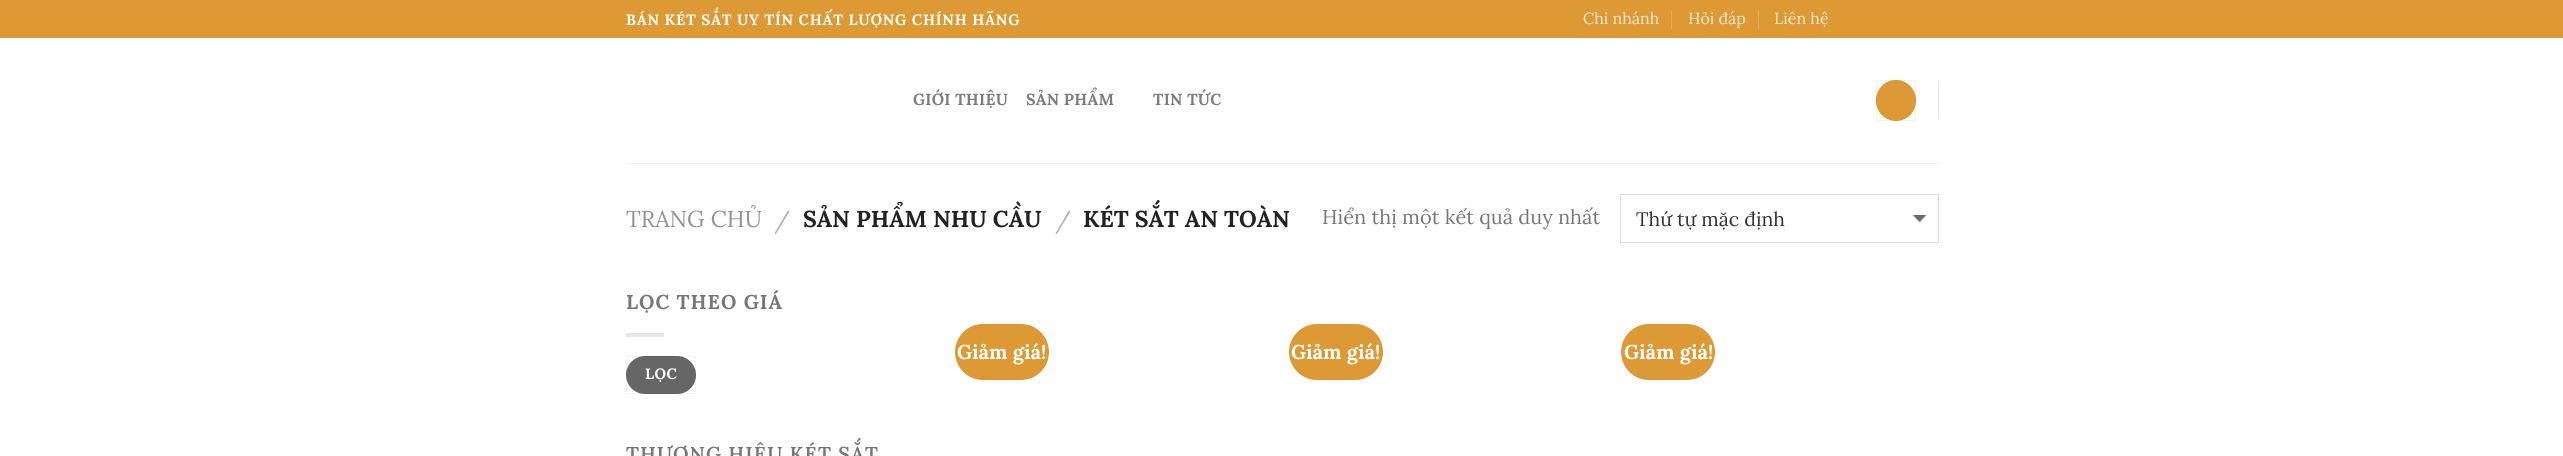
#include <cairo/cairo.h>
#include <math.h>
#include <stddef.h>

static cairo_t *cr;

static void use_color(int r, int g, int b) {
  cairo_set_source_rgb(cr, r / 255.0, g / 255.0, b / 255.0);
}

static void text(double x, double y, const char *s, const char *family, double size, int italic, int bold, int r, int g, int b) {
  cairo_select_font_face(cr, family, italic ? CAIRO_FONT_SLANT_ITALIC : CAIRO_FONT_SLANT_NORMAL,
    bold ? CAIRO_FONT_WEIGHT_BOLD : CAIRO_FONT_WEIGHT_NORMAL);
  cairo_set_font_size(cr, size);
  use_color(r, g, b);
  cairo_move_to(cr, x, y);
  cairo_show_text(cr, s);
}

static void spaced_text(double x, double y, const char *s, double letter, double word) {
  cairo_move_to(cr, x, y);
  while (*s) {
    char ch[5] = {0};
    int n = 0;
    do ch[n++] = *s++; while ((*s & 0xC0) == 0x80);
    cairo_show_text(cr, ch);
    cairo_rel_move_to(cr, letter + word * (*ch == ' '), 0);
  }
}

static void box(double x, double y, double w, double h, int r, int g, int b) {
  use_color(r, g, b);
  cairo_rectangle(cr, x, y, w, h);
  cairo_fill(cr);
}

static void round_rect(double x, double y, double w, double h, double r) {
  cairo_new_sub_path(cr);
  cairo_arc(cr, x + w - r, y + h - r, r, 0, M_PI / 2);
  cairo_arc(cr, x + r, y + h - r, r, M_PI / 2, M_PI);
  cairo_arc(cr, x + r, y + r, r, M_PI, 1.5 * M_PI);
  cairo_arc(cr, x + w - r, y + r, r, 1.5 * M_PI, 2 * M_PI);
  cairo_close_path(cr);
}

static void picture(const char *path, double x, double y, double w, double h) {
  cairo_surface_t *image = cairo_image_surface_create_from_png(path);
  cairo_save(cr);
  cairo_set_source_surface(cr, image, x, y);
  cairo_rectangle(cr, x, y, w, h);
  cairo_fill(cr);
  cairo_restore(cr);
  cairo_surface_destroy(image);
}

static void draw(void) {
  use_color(255, 255, 255);
  cairo_paint(cr);
  box(0, 0, 2563, 38, 221, 153, 51);
  box(1671, 10, 1, 19, 228, 173, 92);
  box(1758, 10, 1, 19, 228, 173, 92);
  use_color(221, 153, 51);
  round_rect(1876, 80, 40, 41, 20);
  cairo_fill(cr);
  cairo_rectangle(cr, 1876.5, 80.5, 39, 40);
  cairo_set_source_rgba(cr, 0, 0, 0, 0.05);
  cairo_set_line_width(cr, 1);
  cairo_stroke(cr);
  box(1938, 81, 1, 38, 230, 230, 230);
  box(626, 163, 1313, 1, 241, 241, 241);
  picture("img_01.png", 1912, 215, 15, 8);
  cairo_rectangle(cr, 1620.5, 194.5, 318, 48);
  use_color(221, 221, 221);
  cairo_stroke(cr);
  box(626, 333, 38, 4, 230, 230, 230);
  use_color(102, 102, 102);
  round_rect(626, 356, 70, 38, 19);
  cairo_fill(cr);
  cairo_rectangle(cr, 626.5, 356.5, 69, 37);
  cairo_set_source_rgba(cr, 0, 0, 0, 0.05);
  cairo_stroke(cr);
  use_color(221, 153, 51);
  round_rect(955, 324, 94, 56, 28);
  cairo_fill(cr);
  round_rect(1289, 324, 94, 56, 28);
  cairo_fill(cr);
  round_rect(1621, 324, 94, 56, 28);
  cairo_fill(cr);
  cairo_select_font_face(cr, "Lora", CAIRO_FONT_SLANT_NORMAL, CAIRO_FONT_WEIGHT_BOLD);
  cairo_set_font_size(cr, 15);
  use_color(255, 255, 255);
  spaced_text(626, 25, "BÁN KÉT SẮT UY TÍN CHẤT LƯỢNG CHÍNH HÃNG", 0.75, 0);
  text(1583, 24, "Chi nhánh", "Lora", 16, 0, 0, 248, 235, 214);
  text(1688, 24, "Hỏi đáp", "Lora", 16, 0, 0, 248, 235, 214);
  text(1774, 24, "Liên hệ", "Lora", 16, 0, 0, 248, 235, 214);
  cairo_select_font_face(cr, "Lora", CAIRO_FONT_SLANT_NORMAL, CAIRO_FONT_WEIGHT_BOLD);
  use_color(125, 125, 125);
  spaced_text(913, 105, "GIỚI THIỆU", 0.25, 0);
  spaced_text(1026, 105, "SẢN PHẨM", 0.25, 0);
  spaced_text(1153, 105, "TIN TỨC", 0.25, 0);
  text(626, 227, "TRANG CHỦ", "Lora", 23, 0, 0, 148, 148, 148);
  text(774, 228, "/", "Lora", 23, 0, 0, 178, 178, 178);
  text(803, 227, "SẢN PHẨM NHU CẦU", "Lora", 23, 0, 1, 34, 34, 34);
  text(1055, 228, "/", "Lora", 23, 0, 0, 178, 178, 178);
  text(1083, 227, "KÉT SẮT AN TOÀN", "Lora", 23, 0, 1, 34, 34, 34);
  text(1322, 224, "Hiển thị một kết quả duy nhất", "Lora", 20, 0, 0, 119, 119, 119);
  text(1636, 226, "Thứ tự mặc định", "Lora", 19.5, 0, 0, 51, 51, 51);
  cairo_select_font_face(cr, "Lora", CAIRO_FONT_SLANT_NORMAL, CAIRO_FONT_WEIGHT_BOLD);
  cairo_set_font_size(cr, 20);
  use_color(119, 119, 119);
  spaced_text(626, 309, "LỌC THEO GIÁ", 1, 0);
  cairo_set_font_size(cr, 15);
  use_color(255, 255, 255);
  spaced_text(645, 379, "LỌC", 0.5, 0);
  cairo_select_font_face(cr, "Lora SemiBold", CAIRO_FONT_SLANT_NORMAL, CAIRO_FONT_WEIGHT_NORMAL);
  cairo_set_font_size(cr, 20);
  use_color(119, 119, 119);
  spaced_text(626, 461, "THƯƠNG HIỆU KÉT SẮT", 1, 0);
  text(957, 359, "Giảm giá!", "Lora", 20, 0, 1, 255, 255, 255);
  text(1291, 359, "Giảm giá!", "Lora", 20, 0, 1, 255, 255, 255);
  text(1624, 359, "Giảm giá!", "Lora", 20, 0, 1, 255, 255, 255);
}

int main(void) {
  cairo_surface_t *surface = cairo_image_surface_create(CAIRO_FORMAT_RGB24, 2563, 456);
  cr = cairo_create(surface);
  cairo_font_options_t *options = cairo_font_options_create();
  cairo_font_options_set_hint_metrics(options, CAIRO_HINT_METRICS_OFF);
  cairo_font_options_set_hint_style(options, CAIRO_HINT_STYLE_NONE);
  cairo_set_font_options(cr, options);
  cairo_set_miter_limit(cr, 4);
  draw();
  cairo_surface_write_to_png(surface, "out.png");
  cairo_font_options_destroy(options);
  cairo_destroy(cr);
  cairo_surface_destroy(surface);
  return 0;
}
